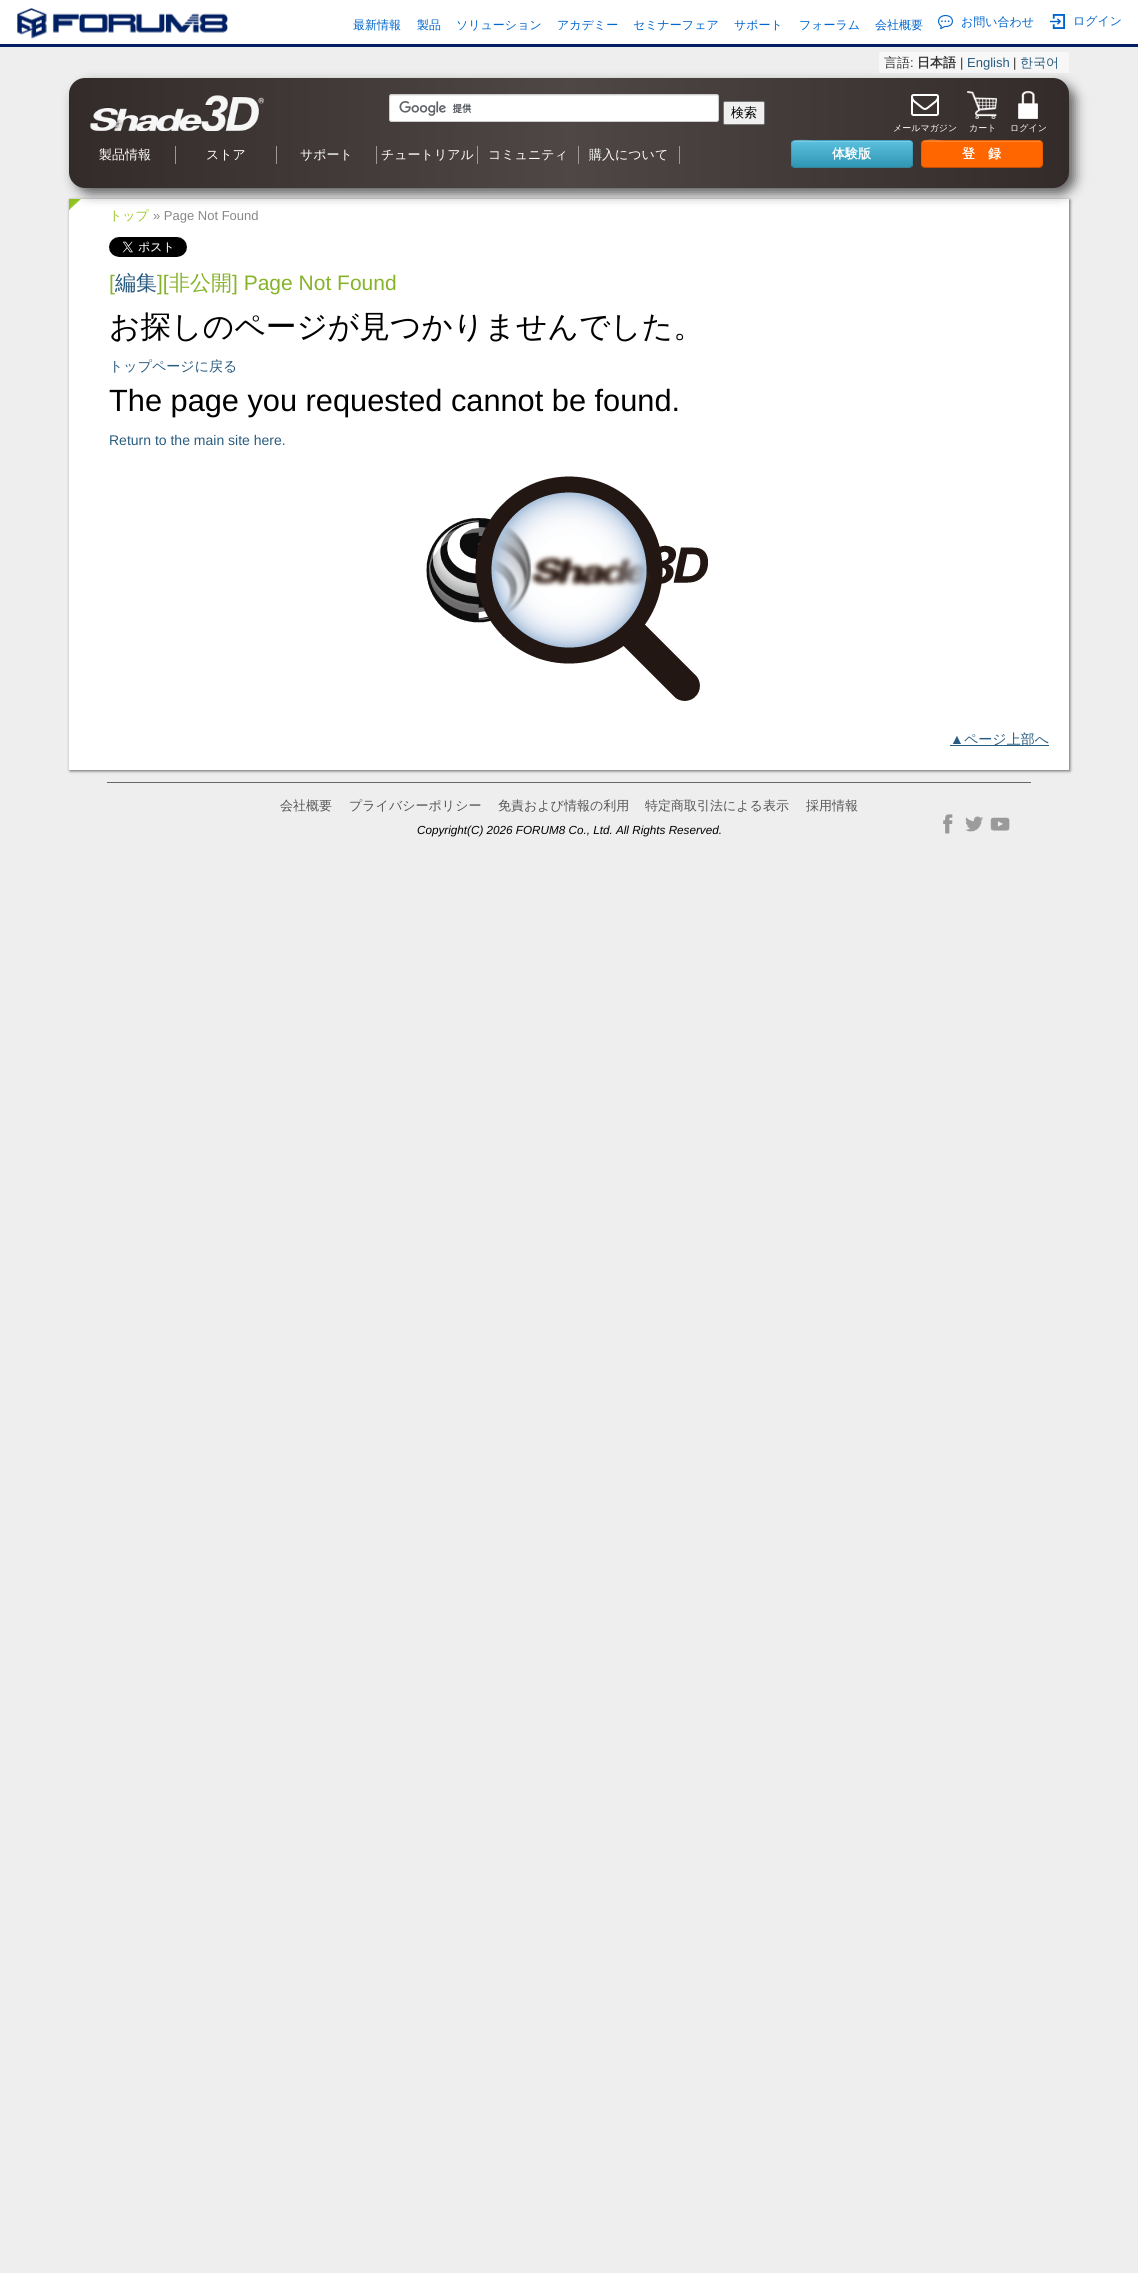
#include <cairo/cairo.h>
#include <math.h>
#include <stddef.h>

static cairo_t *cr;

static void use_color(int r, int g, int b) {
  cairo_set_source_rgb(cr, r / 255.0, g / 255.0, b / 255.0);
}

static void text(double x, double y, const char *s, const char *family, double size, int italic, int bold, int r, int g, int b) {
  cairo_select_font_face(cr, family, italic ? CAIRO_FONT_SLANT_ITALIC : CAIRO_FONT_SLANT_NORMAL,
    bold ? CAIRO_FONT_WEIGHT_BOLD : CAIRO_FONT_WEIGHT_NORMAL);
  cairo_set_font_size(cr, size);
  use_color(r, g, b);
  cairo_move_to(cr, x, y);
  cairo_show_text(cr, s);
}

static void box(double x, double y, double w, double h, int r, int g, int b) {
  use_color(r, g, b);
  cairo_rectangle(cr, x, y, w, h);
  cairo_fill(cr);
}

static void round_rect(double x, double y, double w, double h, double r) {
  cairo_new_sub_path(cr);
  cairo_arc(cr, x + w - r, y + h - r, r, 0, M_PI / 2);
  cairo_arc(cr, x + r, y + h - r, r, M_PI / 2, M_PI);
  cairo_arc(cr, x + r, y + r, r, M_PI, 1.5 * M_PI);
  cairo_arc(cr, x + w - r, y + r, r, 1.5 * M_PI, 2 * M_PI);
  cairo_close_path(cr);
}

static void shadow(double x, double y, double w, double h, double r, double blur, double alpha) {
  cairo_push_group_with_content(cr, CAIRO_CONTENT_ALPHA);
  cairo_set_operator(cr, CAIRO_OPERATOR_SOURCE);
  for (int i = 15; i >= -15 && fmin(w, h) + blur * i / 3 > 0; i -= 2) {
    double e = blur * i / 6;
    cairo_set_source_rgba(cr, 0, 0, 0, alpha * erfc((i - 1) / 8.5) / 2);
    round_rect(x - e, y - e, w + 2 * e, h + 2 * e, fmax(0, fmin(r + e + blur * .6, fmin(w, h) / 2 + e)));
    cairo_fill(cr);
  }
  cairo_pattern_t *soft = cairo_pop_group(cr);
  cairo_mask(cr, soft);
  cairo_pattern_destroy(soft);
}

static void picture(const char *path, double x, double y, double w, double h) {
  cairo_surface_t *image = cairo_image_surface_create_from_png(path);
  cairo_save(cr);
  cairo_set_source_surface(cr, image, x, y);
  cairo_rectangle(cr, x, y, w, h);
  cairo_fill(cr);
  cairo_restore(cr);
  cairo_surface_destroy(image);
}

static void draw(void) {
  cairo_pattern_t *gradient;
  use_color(238, 238, 238);
  cairo_paint(cr);
  box(0, 0, 1138, 44, 255, 255, 255);
  box(0, 44, 1138, 3, 0, 32, 99);
  picture("img_01.png", 17, 8, 211, 31);
  picture("img_02.png", 938, 15, 15, 14);
  picture("img_03.png", 1050, 14, 15, 15);
  use_color(102, 102, 102);
  shadow(70, 200, 1000, 571, 0, 1.5, 1);
  box(69, 199, 1000, 571, 255, 255, 255);
  picture("img_09.png", 69, 199, 12, 11);
  use_color(0, 0, 0);
  shadow(75, 84, 1000, 110, 16, 6, 0.6);
  cairo_set_source_rgba(cr, 1, 1, 1, 0.5);
  cairo_rectangle(cr, 879, 52, 190, 21);
  cairo_fill(cr);
  gradient = cairo_pattern_create_linear(1069, 133, 69, 133);
  cairo_pattern_add_color_stop_rgba(gradient, 0, 0.2, 0.169, 0.161, 1);
  cairo_pattern_add_color_stop_rgba(gradient, 0.5, 0.306, 0.278, 0.271, 1);
  cairo_pattern_add_color_stop_rgba(gradient, 1, 0.2, 0.169, 0.161, 1);
  cairo_set_source(cr, gradient);
  cairo_pattern_destroy(gradient);
  round_rect(69, 78, 1000, 110, 16);
  cairo_fill(cr);
  picture("img_04.png", 90, 95, 174, 36);
  use_color(255, 255, 255);
  round_rect(389, 94, 330, 28, 3);
  cairo_fill(cr);
  picture("img_05.png", 399, 101, 73, 15);
  use_color(236, 236, 236);
  cairo_new_path(cr);
  cairo_move_to(cr, 392, 96);
  cairo_line_to(cr, 716, 96);
  cairo_curve_to(cr, 717, 96, 718, 97, 718, 98);
  cairo_curve_to(cr, 718, 97, 718, 95, 716, 95);
  cairo_line_to(cr, 391, 95);
  cairo_line_to(cr, 390, 96);
  cairo_line_to(cr, 390, 98);
  cairo_curve_to(cr, 390, 97, 391, 96, 392, 96);
  cairo_close_path(cr);
  cairo_fill(cr);
  round_rect(389.5, 94.5, 329, 27, 2.5);
  use_color(204, 204, 204);
  cairo_set_line_width(cr, 1);
  cairo_stroke(cr);
  use_color(239, 239, 239);
  round_rect(723.5, 101.5, 41, 23, 1.5);
  cairo_fill_preserve(cr);
  use_color(118, 118, 118);
  cairo_stroke(cr);
  picture("img_06.png", 911, 94, 28, 22);
  picture("img_07.png", 967, 91, 30, 28);
  picture("img_08.png", 1018, 91, 20, 28);
  box(175, 146, 1, 18, 153, 153, 153);
  box(276, 146, 1, 18, 153, 153, 153);
  box(376, 146, 1, 18, 153, 153, 153);
  box(477, 146, 1, 18, 153, 153, 153);
  box(578, 146, 1, 18, 153, 153, 153);
  box(679, 146, 1, 18, 153, 153, 153);
  use_color(73, 175, 205);
  round_rect(791, 140, 122, 28, 4);
  cairo_fill(cr);
  cairo_save(cr);
  round_rect(791, 140, 122, 28, 4);
  cairo_clip(cr);
  gradient = cairo_pattern_create_linear(852, 141, 852, 167);
  cairo_pattern_add_color_stop_rgba(gradient, 0, 0.357, 0.753, 0.871, 1);
  cairo_pattern_add_color_stop_rgba(gradient, 1, 0.184, 0.588, 0.706, 1);
  cairo_set_source(cr, gradient);
  cairo_pattern_destroy(gradient);
  cairo_rectangle(cr, 791, 141, 122, 26);
  cairo_fill(cr);
  cairo_restore(cr);
  cairo_set_source_rgba(cr, 1, 1, 1, 0.2);
  cairo_new_path(cr);
  cairo_move_to(cr, 795, 142);
  cairo_line_to(cr, 909, 142);
  cairo_curve_to(cr, 911, 142, 912, 143, 912, 145);
  cairo_curve_to(cr, 912, 143, 911, 141, 909, 141);
  cairo_line_to(cr, 814, 141);
  cairo_curve_to(cr, 813, 141, 792, 136, 792, 145);
  cairo_curve_to(cr, 792, 143, 793, 142, 795, 142);
  cairo_close_path(cr);
  cairo_fill(cr);
  cairo_new_path(cr);
  cairo_move_to(cr, 911.5, 166.5);
  cairo_curve_to(cr, 911, 167, 910, 167.5, 909, 167.5);
  cairo_line_to(cr, 795, 167.5);
  cairo_curve_to(cr, 794, 167.5, 793, 167, 792.5, 166.5);
  cairo_set_source_rgba(cr, 0, 0, 0, 0.25);
  cairo_stroke(cr);
  cairo_new_path(cr);
  cairo_move_to(cr, 792.5, 166.5);
  cairo_curve_to(cr, 790.5, 164, 791.5, 156.5, 791.5, 154);
  cairo_line_to(cr, 791.5, 147.5);
  cairo_curve_to(cr, 791.5, 144.5, 791, 140.5, 795, 140.5);
  cairo_line_to(cr, 909, 140.5);
  cairo_curve_to(cr, 913, 140.5, 912.5, 144.5, 912.5, 147.5);
  cairo_line_to(cr, 912.5, 154);
  cairo_curve_to(cr, 912.5, 156.5, 913.5, 164, 911.5, 166.5);
  cairo_set_source_rgba(cr, 0, 0, 0, 0.1);
  cairo_stroke(cr);
  use_color(255, 102, 0);
  round_rect(921, 140, 122, 28, 4);
  cairo_fill(cr);
  use_color(255, 133, 51);
  cairo_new_path(cr);
  cairo_move_to(cr, 925, 142);
  cairo_line_to(cr, 1039, 142);
  cairo_curve_to(cr, 1041, 142, 1042, 143, 1042, 145);
  cairo_curve_to(cr, 1042, 143, 1041, 141, 1039, 141);
  cairo_line_to(cr, 944, 141);
  cairo_curve_to(cr, 943, 141, 922, 136, 922, 145);
  cairo_curve_to(cr, 922, 143, 923, 142, 925, 142);
  cairo_close_path(cr);
  cairo_fill(cr);
  cairo_new_path(cr);
  cairo_move_to(cr, 1041.5, 166.5);
  cairo_curve_to(cr, 1041, 167, 1040, 167.5, 1039, 167.5);
  cairo_line_to(cr, 925, 167.5);
  cairo_curve_to(cr, 924, 167.5, 923, 167, 922.5, 166.5);
  cairo_set_source_rgba(cr, 0, 0, 0, 0.25);
  cairo_stroke(cr);
  cairo_new_path(cr);
  cairo_move_to(cr, 922.5, 166.5);
  cairo_curve_to(cr, 920.5, 164, 921.5, 156.5, 921.5, 154);
  cairo_line_to(cr, 921.5, 147.5);
  cairo_curve_to(cr, 921.5, 144.5, 921, 140.5, 925, 140.5);
  cairo_line_to(cr, 1039, 140.5);
  cairo_curve_to(cr, 1043, 140.5, 1042.5, 144.5, 1042.5, 147.5);
  cairo_line_to(cr, 1042.5, 154);
  cairo_curve_to(cr, 1042.5, 156.5, 1043.5, 164, 1041.5, 166.5);
  cairo_set_source_rgba(cr, 0, 0, 0, 0.1);
  cairo_stroke(cr);
  picture("img_10.png", 109, 237, 78, 20);
  picture("img_11.png", 426, 476, 282, 225);
  box(950, 745, 99, 1, 41, 92, 128);
  box(107, 782, 924, 1, 102, 102, 102);
  picture("img_12.png", 943, 814, 10, 20);
  picture("img_13.png", 965, 816, 18, 16);
  picture("img_14.png", 990, 817, 20, 14);
  text(353, 29, "最新情報", "WenQuanYi Zen Hei Medium", 12, 0, 0, 0, 102, 204);
  text(417, 29, "製品", "WenQuanYi Zen Hei Medium", 12, 0, 0, 0, 102, 204);
  text(456, 29, "ソリューション", "WenQuanYi Zen Hei Medium", 12, 0, 0, 0, 102, 204);
  text(557, 29, "アカデミー", "WenQuanYi Zen Hei Medium", 12, 0, 0, 0, 102, 204);
  text(633, 29, "セミナーフェア", "WenQuanYi Zen Hei Medium", 12, 0, 0, 0, 102, 204);
  text(734, 29, "サポート", "WenQuanYi Zen Hei Medium", 12, 0, 0, 0, 102, 204);
  text(799, 29, "フォーラム", "WenQuanYi Zen Hei Medium", 12, 0, 0, 0, 102, 204);
  text(875, 29, "会社概要", "WenQuanYi Zen Hei Medium", 12, 0, 0, 0, 102, 204);
  text(961, 26, "お問い合わせ", "WenQuanYi Zen Hei Medium", 12, 0, 0, 0, 102, 204);
  text(1073, 25, "ログイン", "WenQuanYi Zen Hei Medium", 12, 0, 0, 0, 102, 204);
  text(884, 67, "言語", "WenQuanYi Zen Hei Medium", 13, 0, 0, 51, 51, 51);
  text(910, 67, ":", "Liberation Sans", 13, 0, 0, 51, 51, 51);
  text(917, 67, "日本語", "WenQuanYi Zen Hei", 13, 0, 1, 51, 51, 51);
  text(960, 67, "|", "Liberation Sans", 13, 0, 0, 51, 51, 51);
  text(967, 67, "English", "Liberation Sans", 13, 0, 0, 41, 92, 128);
  text(1013, 67, "|", "Liberation Sans", 13, 0, 0, 51, 51, 51);
  text(1020, 67, "한국어", "WenQuanYi Zen Hei Medium", 13, 0, 0, 41, 92, 128);
  text(731, 117, "検索", "WenQuanYi Zen Hei Medium", 13, 0, 0, 0, 0, 0);
  text(893, 131, "メールマガジン", "WenQuanYi Zen Hei Medium", 9, 0, 0, 255, 255, 255);
  text(969, 131, "カート", "WenQuanYi Zen Hei Medium", 9, 0, 0, 255, 255, 255);
  text(1010, 131, "ログイン", "WenQuanYi Zen Hei Medium", 9, 0, 0, 255, 255, 255);
  text(99, 159, "製品情報", "WenQuanYi Zen Hei Medium", 13, 0, 0, 255, 255, 255);
  text(206, 159, "ストア", "WenQuanYi Zen Hei Medium", 13, 0, 0, 255, 255, 255);
  text(300, 159, "サポート", "WenQuanYi Zen Hei Medium", 13, 0, 0, 255, 255, 255);
  text(381, 159, "チュートリアル", "WenQuanYi Zen Hei Medium", 13, 0, 0, 255, 255, 255);
  text(488, 159, "コミュニティ", "WenQuanYi Zen Hei Medium", 13, 0, 0, 255, 255, 255);
  text(589, 159, "購入について", "WenQuanYi Zen Hei Medium", 13, 0, 0, 255, 255, 255);
  text(832, 158, "体験版", "WenQuanYi Zen Hei", 13, 0, 1, 255, 255, 255);
  text(962, 158, "登　録", "WenQuanYi Zen Hei", 13, 0, 1, 255, 255, 255);
  text(109, 220, "トップ", "WenQuanYi Zen Hei Medium", 13, 0, 0, 160, 199, 45);
  text(153, 220, "» Page Not Found", "Liberation Sans", 13, 0, 0, 136, 136, 136);
  text(109, 290, "[", "Liberation Sans", 21, 0, 0, 134, 179, 42);
  text(115, 290, "編集", "WenQuanYi Zen Hei Medium", 21, 0, 0, 41, 92, 128);
  text(157, 290, "][", "Liberation Sans", 21, 0, 0, 134, 179, 42);
  text(169, 290, "非公開", "WenQuanYi Zen Hei Medium", 21, 0, 0, 134, 179, 42);
  text(232, 290, "] Page Not Found", "Liberation Sans", 21, 0, 0, 134, 179, 42);
  text(109, 337, "お探しのページが見つかりませんでした。", "WenQuanYi Zen Hei Medium", 30.75, 0, 0, 0, 0, 0);
  text(109, 371, "トップページに戻る", "WenQuanYi Zen Hei Medium", 14, 0, 0, 41, 92, 128);
  text(109, 411, "The page you requested cannot be found.", "Liberation Sans", 30.75, 0, 0, 0, 0, 0);
  text(109, 445, "Return to the main site here.", "Liberation Sans", 14, 0, 0, 41, 92, 128);
  text(950, 744, "▲", "Liberation Sans", 14, 0, 0, 41, 92, 128);
  text(964, 744, "ページ上部へ", "WenQuanYi Zen Hei Medium", 14, 0, 0, 41, 92, 128);
  text(280, 810, "会社概要", "WenQuanYi Zen Hei Medium", 13, 0, 0, 86, 86, 86);
  text(349, 810, "プライバシーポリシー", "WenQuanYi Zen Hei Medium", 13, 0, 0, 86, 86, 86);
  text(498, 810, "免責および情報の利用", "WenQuanYi Zen Hei Medium", 13, 0, 0, 86, 86, 86);
  text(645, 810, "特定商取引法による表示", "WenQuanYi Zen Hei Medium", 13, 0, 0, 86, 86, 86);
  text(806, 810, "採用情報", "WenQuanYi Zen Hei Medium", 13, 0, 0, 86, 86, 86);
  text(417, 834, "Copyright(C) 2026 FORUM8 Co., Ltd. All Rights Reserved.", "Liberation Sans", 11.7, 1, 0, 0, 0, 0);
}

int main(void) {
  cairo_surface_t *surface = cairo_image_surface_create(CAIRO_FORMAT_RGB24, 1138, 2273);
  cr = cairo_create(surface);
  cairo_font_options_t *options = cairo_font_options_create();
  cairo_font_options_set_hint_metrics(options, CAIRO_HINT_METRICS_OFF);
  cairo_font_options_set_hint_style(options, CAIRO_HINT_STYLE_NONE);
  cairo_set_font_options(cr, options);
  cairo_set_miter_limit(cr, 4);
  draw();
  cairo_surface_write_to_png(surface, "out.png");
  cairo_font_options_destroy(options);
  cairo_destroy(cr);
  cairo_surface_destroy(surface);
  return 0;
}
